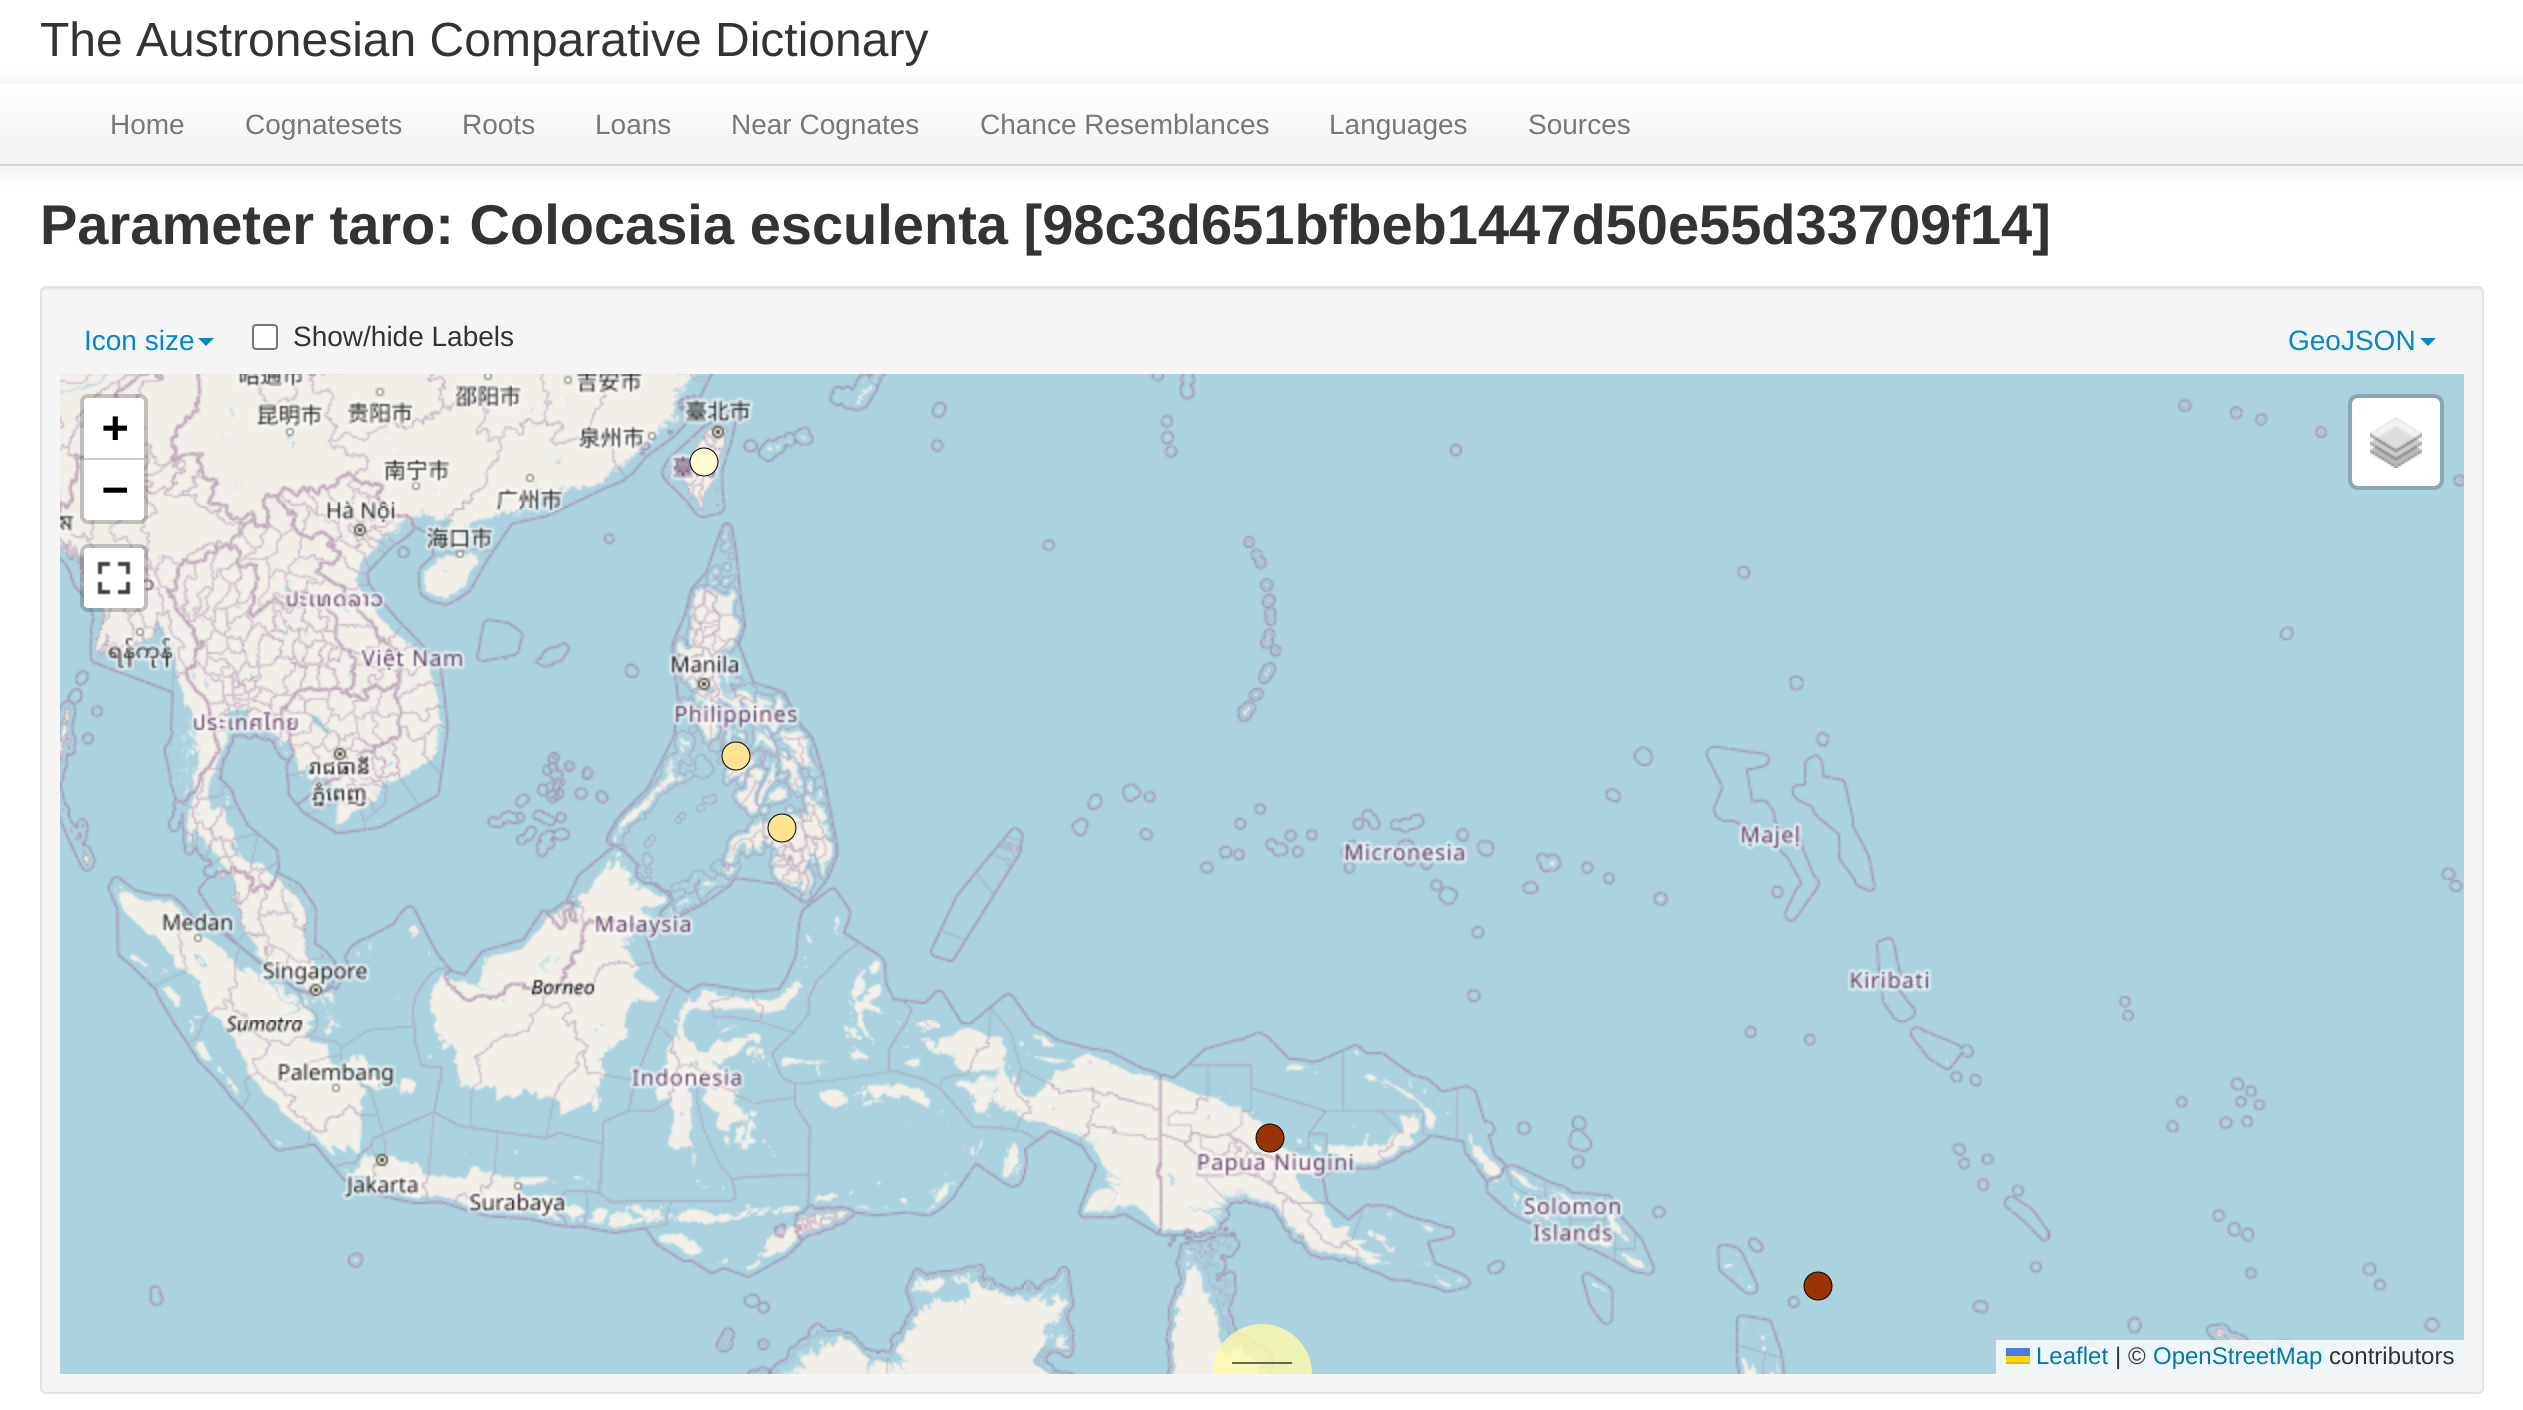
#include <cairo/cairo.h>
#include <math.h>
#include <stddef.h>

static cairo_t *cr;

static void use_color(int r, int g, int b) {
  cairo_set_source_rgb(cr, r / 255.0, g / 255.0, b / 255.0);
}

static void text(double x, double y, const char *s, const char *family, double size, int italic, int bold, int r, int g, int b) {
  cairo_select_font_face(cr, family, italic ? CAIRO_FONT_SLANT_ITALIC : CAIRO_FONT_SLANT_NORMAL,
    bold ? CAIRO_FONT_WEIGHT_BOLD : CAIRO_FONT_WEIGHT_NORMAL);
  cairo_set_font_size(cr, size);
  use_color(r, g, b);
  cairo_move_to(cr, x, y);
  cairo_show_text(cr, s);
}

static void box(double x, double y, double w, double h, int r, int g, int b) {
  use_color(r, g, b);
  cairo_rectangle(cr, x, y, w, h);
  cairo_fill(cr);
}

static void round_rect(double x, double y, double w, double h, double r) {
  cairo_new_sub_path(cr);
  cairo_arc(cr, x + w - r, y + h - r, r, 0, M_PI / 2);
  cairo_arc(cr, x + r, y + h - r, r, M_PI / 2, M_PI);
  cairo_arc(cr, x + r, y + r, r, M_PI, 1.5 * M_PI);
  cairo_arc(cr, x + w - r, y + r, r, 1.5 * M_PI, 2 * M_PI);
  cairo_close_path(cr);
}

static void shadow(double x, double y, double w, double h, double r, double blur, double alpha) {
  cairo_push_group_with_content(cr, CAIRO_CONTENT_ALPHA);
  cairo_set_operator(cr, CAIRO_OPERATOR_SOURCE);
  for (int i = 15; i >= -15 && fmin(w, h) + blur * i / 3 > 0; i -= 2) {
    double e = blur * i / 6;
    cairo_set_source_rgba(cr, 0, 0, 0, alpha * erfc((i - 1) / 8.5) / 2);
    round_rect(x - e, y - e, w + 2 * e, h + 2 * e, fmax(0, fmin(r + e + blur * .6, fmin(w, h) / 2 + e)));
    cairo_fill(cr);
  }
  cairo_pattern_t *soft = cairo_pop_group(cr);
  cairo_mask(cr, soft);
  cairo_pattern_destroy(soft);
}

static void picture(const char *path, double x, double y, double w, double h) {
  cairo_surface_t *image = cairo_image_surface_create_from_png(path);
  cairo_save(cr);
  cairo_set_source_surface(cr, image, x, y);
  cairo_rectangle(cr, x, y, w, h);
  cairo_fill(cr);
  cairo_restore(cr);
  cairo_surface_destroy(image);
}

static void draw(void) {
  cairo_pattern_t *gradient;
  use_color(255, 255, 255);
  cairo_paint(cr);
  use_color(0, 0, 0);
  shadow(0, 86, 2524, 82, 0, 10, 0.1);
  gradient = cairo_pattern_create_linear(1262, 84, 1262, 164);
  cairo_pattern_add_color_stop_rgba(gradient, 0, 1, 1, 1, 1);
  cairo_pattern_add_color_stop_rgba(gradient, 1, 0.949, 0.949, 0.949, 1);
  cairo_set_source(cr, gradient);
  cairo_pattern_destroy(gradient);
  cairo_rectangle(cr, 0, 84, 2523, 80);
  cairo_fill(cr);
  box(0, 164, 2523, 2, 212, 212, 212);
  use_color(245, 245, 245);
  round_rect(40, 286, 2444, 1108, 6);
  cairo_fill(cr);
  use_color(233, 233, 233);
  cairo_new_path(cr);
  cairo_move_to(cr, 46, 290);
  cairo_line_to(cr, 2478, 290);
  cairo_curve_to(cr, 2480, 290, 2482, 292, 2482, 294);
  cairo_line_to(cr, 2482, 292);
  cairo_curve_to(cr, 2482, 290, 2480, 288, 2478, 288);
  cairo_line_to(cr, 46, 288);
  cairo_curve_to(cr, 44, 288, 42, 290, 42, 292);
  cairo_line_to(cr, 42, 294);
  cairo_curve_to(cr, 42, 292, 44, 290, 46, 290);
  cairo_close_path(cr);
  cairo_fill(cr);
  round_rect(41, 287, 2442, 1106, 5);
  use_color(227, 227, 227);
  cairo_stroke(cr);
  use_color(0, 136, 204);
  cairo_new_path(cr);
  cairo_move_to(cr, 198, 338);
  cairo_line_to(cr, 214, 338);
  cairo_line_to(cr, 206, 346);
  cairo_close_path(cr);
  cairo_fill(cr);
  use_color(255, 255, 255);
  round_rect(253, 325, 24, 24, 3);
  cairo_fill_preserve(cr);
  use_color(118, 118, 118);
  cairo_stroke(cr);
  use_color(0, 136, 204);
  cairo_new_path(cr);
  cairo_move_to(cr, 2420, 338);
  cairo_line_to(cr, 2436, 338);
  cairo_line_to(cr, 2428, 346);
  cairo_close_path(cr);
  cairo_fill(cr);
  picture("img_01.png", 60, 374, 452, 134);
  picture("img_02.png", 512, 374, 512, 134);
  picture("img_03.png", 1024, 374, 512, 134);
  box(1536, 374, 512, 134, 170, 211, 223);
  picture("img_04.png", 2048, 374, 416, 134);
  picture("img_05.png", 60, 508, 452, 512);
  picture("img_06.png", 512, 508, 512, 512);
  picture("img_07.png", 1024, 508, 512, 512);
  picture("img_08.png", 1536, 508, 512, 512);
  picture("img_09.png", 2048, 508, 416, 512);
  picture("img_10.png", 60, 1020, 452, 354);
  picture("img_11.png", 512, 1020, 512, 354);
  picture("img_12.png", 1024, 1020, 512, 354);
  picture("img_13.png", 1536, 1020, 512, 354);
  picture("img_14.png", 2048, 1020, 416, 354);
  use_color(255, 251, 213);
  cairo_arc(cr, 704, 462, 14, 0, 2 * M_PI);
  cairo_fill_preserve(cr);
  use_color(0, 0, 0);
  cairo_set_line_width(cr, 1);
  cairo_stroke(cr);
  use_color(254, 227, 145);
  cairo_arc(cr, 736, 756, 14, 0, 2 * M_PI);
  cairo_fill_preserve(cr);
  use_color(0, 0, 0);
  cairo_stroke(cr);
  use_color(254, 227, 145);
  cairo_arc(cr, 782, 828, 14, 0, 2 * M_PI);
  cairo_fill_preserve(cr);
  use_color(0, 0, 0);
  cairo_stroke(cr);
  use_color(153, 52, 4);
  cairo_arc(cr, 1270, 1138, 14, 0, 2 * M_PI);
  cairo_fill_preserve(cr);
  use_color(0, 0, 0);
  cairo_stroke(cr);
  use_color(153, 52, 4);
  cairo_arc(cr, 1818, 1286, 14, 0, 2 * M_PI);
  cairo_fill_preserve(cr);
  use_color(0, 0, 0);
  cairo_stroke(cr);
  round_rect(82, 396, 64, 126, 6);
  cairo_set_source_rgba(cr, 0, 0, 0, 0.2);
  cairo_set_line_width(cr, 4);
  cairo_stroke(cr);
  use_color(255, 255, 255);
  cairo_new_path(cr);
  cairo_move_to(cr, 88, 398);
  cairo_line_to(cr, 140, 398);
  cairo_curve_to(cr, 142, 398, 144, 400, 144, 402);
  cairo_line_to(cr, 144, 460);
  cairo_line_to(cr, 84, 460);
  cairo_line_to(cr, 84, 402);
  cairo_curve_to(cr, 84, 400, 86, 398, 88, 398);
  cairo_close_path(cr);
  cairo_fill(cr);
  box(84, 458, 60, 2, 204, 204, 204);
  use_color(255, 255, 255);
  cairo_new_path(cr);
  cairo_move_to(cr, 84, 460);
  cairo_line_to(cr, 144, 460);
  cairo_line_to(cr, 144, 516);
  cairo_curve_to(cr, 144, 518, 142, 520, 140, 520);
  cairo_line_to(cr, 88, 520);
  cairo_curve_to(cr, 86, 520, 84, 518, 84, 516);
  cairo_close_path(cr);
  cairo_fill(cr);
  round_rect(82, 546, 64, 64, 6);
  cairo_set_source_rgba(cr, 0, 0, 0, 0.2);
  cairo_stroke(cr);
  use_color(255, 255, 255);
  round_rect(84, 548, 60, 60, 4);
  cairo_fill(cr);
  picture("img_15.png", 97, 561, 34, 34);
  round_rect(2352, 398, 88, 88, 6);
  cairo_fill(cr);
  round_rect(2350, 396, 92, 92, 8);
  cairo_set_source_rgba(cr, 0, 0, 0, 0.2);
  cairo_stroke(cr);
  picture("img_16.png", 2370, 417, 52, 51);
  cairo_set_source_rgba(cr, 1, 0.98, 0.667, 0.8);
  cairo_new_path(cr);
  cairo_move_to(cr, 1262, 1324);
  cairo_curve_to(cr, 1289.5, 1324, 1312, 1346.5, 1312, 1374);
  cairo_line_to(cr, 1212, 1374);
  cairo_curve_to(cr, 1212, 1346.5, 1234.5, 1324, 1262, 1324);
  cairo_close_path(cr);
  cairo_fill(cr);
  cairo_set_source_rgba(cr, 0.333, 0.333, 0.333, 0.9);
  cairo_rectangle(cr, 1232, 1362, 60, 2);
  cairo_fill(cr);
  cairo_set_source_rgba(cr, 1, 1, 1, 0.8);
  cairo_rectangle(cr, 1996, 1340, 468, 34);
  cairo_fill(cr);
  box(2006, 1348, 24, 8, 76, 123, 225);
  box(2006, 1356, 24, 6, 255, 213, 0);
  box(2006, 1362, 24, 2, 224, 188, 0);
  text(40, 56, "The Austronesian Comparative Dictionary", "Liberation Sans", 48, 0, 0, 51, 51, 51);
  text(110, 134, "Home", "Liberation Sans", 28, 0, 0, 119, 119, 119);
  text(245, 134, "Cognatesets", "Liberation Sans", 28, 0, 0, 119, 119, 119);
  text(462, 134, "Roots", "Liberation Sans", 28, 0, 0, 119, 119, 119);
  text(595, 134, "Loans", "Liberation Sans", 28, 0, 0, 119, 119, 119);
  text(731, 134, "Near Cognates", "Liberation Sans", 28, 0, 0, 119, 119, 119);
  text(980, 134, "Chance Resemblances", "Liberation Sans", 28, 0, 0, 119, 119, 119);
  text(1329, 134, "Languages", "Liberation Sans", 28, 0, 0, 119, 119, 119);
  text(1528, 134, "Sources", "Liberation Sans", 28, 0, 0, 119, 119, 119);
  text(40, 244, "Parameter taro: Colocasia esculenta [98c3d651bfbeb1447d50e55d33709f14]", "Liberation Sans", 56, 0, 1, 51, 51, 51);
  text(84, 350, "Icon size", "Liberation Sans", 28, 0, 0, 0, 136, 204);
  text(293, 346, "Show/hide Labels", "Liberation Sans", 28, 0, 0, 51, 51, 51);
  text(2288, 350, "GeoJSON", "Liberation Sans", 28, 0, 0, 0, 136, 204);
  text(102, 442, "+", "DejaVu Sans Mono", 44, 0, 1, 0, 0, 0);
  text(102, 504, "−", "DejaVu Sans Mono", 44, 0, 1, 0, 0, 0);
  text(2036, 1364, "Leaflet", "Liberation Sans", 24, 0, 0, 0, 120, 168);
  text(2115, 1364, "| ©", "Liberation Sans", 24, 0, 0, 51, 51, 51);
  text(2153, 1364, "OpenStreetMap", "Liberation Sans", 24, 0, 0, 0, 120, 168);
  text(2329, 1364, "contributors", "Liberation Sans", 24, 0, 0, 51, 51, 51);
}

int main(void) {
  cairo_surface_t *surface = cairo_image_surface_create(CAIRO_FORMAT_RGB24, 2523, 1410);
  cr = cairo_create(surface);
  cairo_font_options_t *options = cairo_font_options_create();
  cairo_font_options_set_hint_metrics(options, CAIRO_HINT_METRICS_OFF);
  cairo_font_options_set_hint_style(options, CAIRO_HINT_STYLE_NONE);
  cairo_set_font_options(cr, options);
  cairo_set_miter_limit(cr, 4);
  draw();
  cairo_surface_write_to_png(surface, "out.png");
  cairo_font_options_destroy(options);
  cairo_destroy(cr);
  cairo_surface_destroy(surface);
  return 0;
}
